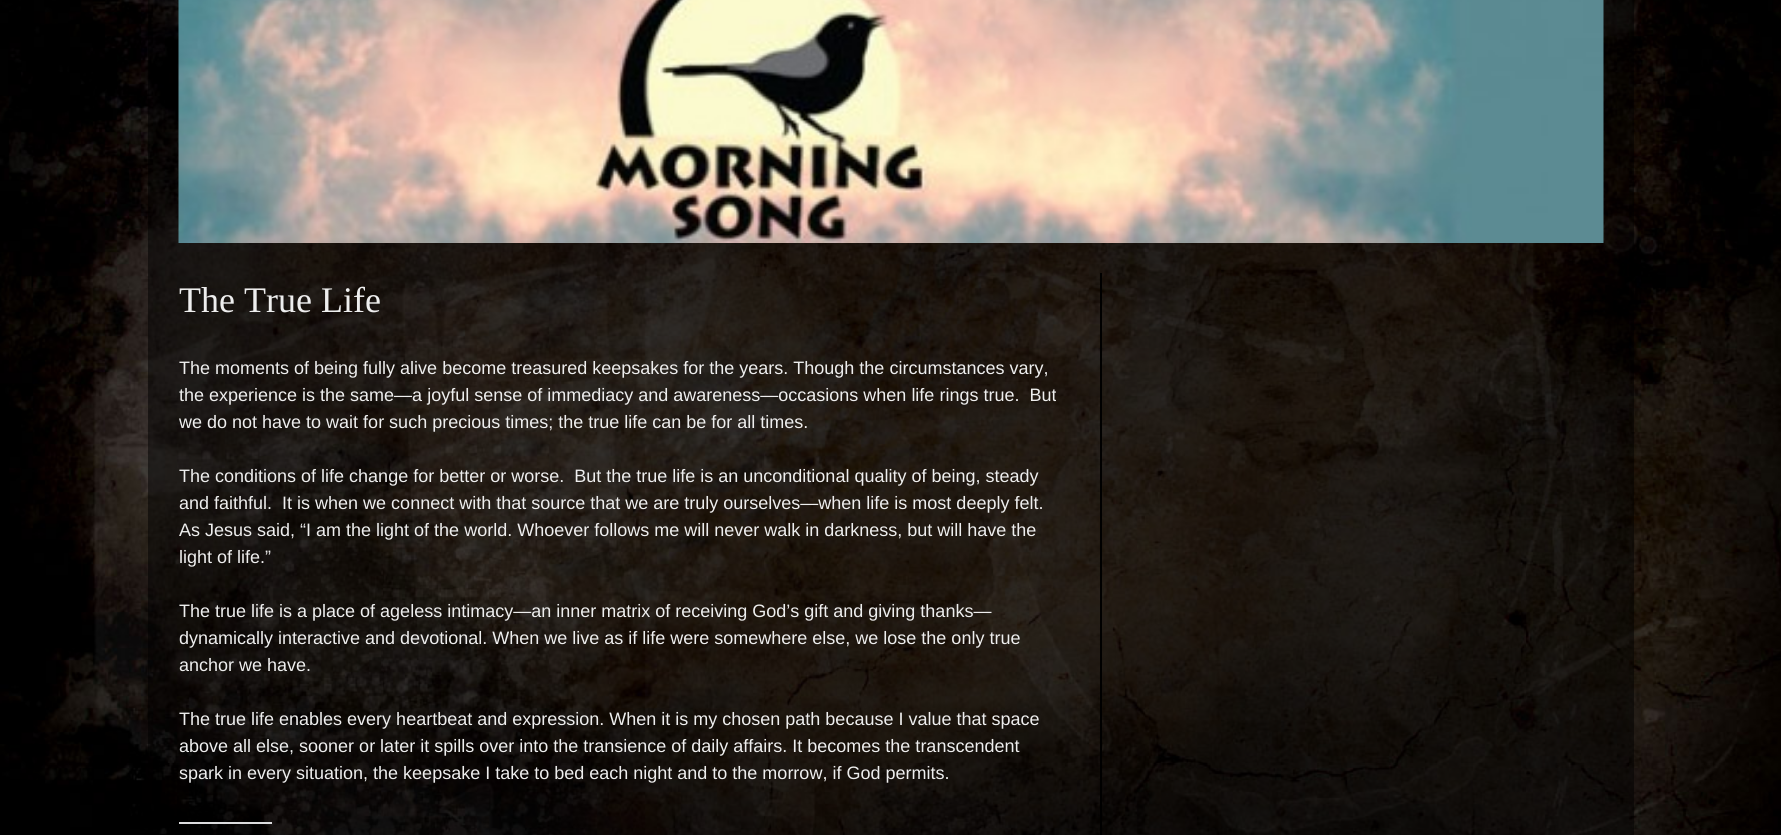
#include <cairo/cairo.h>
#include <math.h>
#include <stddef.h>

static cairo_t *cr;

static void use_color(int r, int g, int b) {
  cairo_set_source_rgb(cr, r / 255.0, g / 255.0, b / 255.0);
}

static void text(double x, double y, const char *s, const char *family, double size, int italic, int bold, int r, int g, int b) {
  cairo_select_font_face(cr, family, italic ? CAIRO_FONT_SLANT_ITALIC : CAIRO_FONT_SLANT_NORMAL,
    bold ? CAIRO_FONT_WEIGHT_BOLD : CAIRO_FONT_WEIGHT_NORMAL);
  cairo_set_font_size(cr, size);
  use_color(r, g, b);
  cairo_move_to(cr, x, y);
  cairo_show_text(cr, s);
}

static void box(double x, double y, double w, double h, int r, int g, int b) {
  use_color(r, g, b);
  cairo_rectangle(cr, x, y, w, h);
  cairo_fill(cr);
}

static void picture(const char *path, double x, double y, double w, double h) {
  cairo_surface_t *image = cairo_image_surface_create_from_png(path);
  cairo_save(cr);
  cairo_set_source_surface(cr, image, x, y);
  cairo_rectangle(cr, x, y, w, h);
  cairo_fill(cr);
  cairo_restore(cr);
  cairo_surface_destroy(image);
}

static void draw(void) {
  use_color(255, 255, 255);
  cairo_paint(cr);
  picture("img_01.png", 0, 0, 1781, 835);
  cairo_set_source_rgba(cr, 0, 0, 0, 0.5);
  cairo_rectangle(cr, 148, 0, 1486, 835);
  cairo_fill(cr);
  picture("img_02.png", 178, 0, 1426, 243);
  box(1100, 273, 2, 562, 0, 0, 0);
  box(179, 822, 93, 2, 220, 220, 222);
  text(179, 312, "The True Life", "Liberation Serif", 36, 0, 0, 238, 238, 238);
  text(179, 374, "The moments of being fully alive become treasured keepsakes for the years. Though the circumstances vary,", "Liberation Sans", 18, 0, 0, 238, 238, 238);
  text(179, 401, "the experience is the same—a joyful sense of immediacy and awareness—occasions when life rings true.  But", "Liberation Sans", 18, 0, 0, 238, 238, 238);
  text(179, 428, "we do not have to wait for such precious times; the true life can be for all times.", "Liberation Sans", 18, 0, 0, 238, 238, 238);
  text(179, 482, "The conditions of life change for better or worse.  But the true life is an unconditional quality of being, steady", "Liberation Sans", 18, 0, 0, 238, 238, 238);
  text(179, 509, "and faithful.  It is when we connect with that source that we are truly ourselves—when life is most deeply felt.", "Liberation Sans", 18, 0, 0, 238, 238, 238);
  text(179, 536, "As Jesus said, “I am the light of the world. Whoever follows me will never walk in darkness, but will have the", "Liberation Sans", 18, 0, 0, 238, 238, 238);
  text(179, 563, "light of life.”", "Liberation Sans", 18, 0, 0, 238, 238, 238);
  text(179, 617, "The true life is a place of ageless intimacy—an inner matrix of receiving God’s gift and giving thanks—", "Liberation Sans", 18, 0, 0, 238, 238, 238);
  text(179, 644, "dynamically interactive and devotional. When we live as if life were somewhere else, we lose the only true", "Liberation Sans", 18, 0, 0, 238, 238, 238);
  text(179, 671, "anchor we have.", "Liberation Sans", 18, 0, 0, 238, 238, 238);
  text(179, 725, "The true life enables every heartbeat and expression. When it is my chosen path because I value that space", "Liberation Sans", 18, 0, 0, 238, 238, 238);
  text(179, 752, "above all else, sooner or later it spills over into the transience of daily affairs. It becomes the transcendent", "Liberation Sans", 18, 0, 0, 238, 238, 238);
  text(179, 779, "spark in every situation, the keepsake I take to bed each night and to the morrow, if God permits.", "Liberation Sans", 18, 0, 0, 238, 238, 238);
}

int main(void) {
  cairo_surface_t *surface = cairo_image_surface_create(CAIRO_FORMAT_RGB24, 1781, 835);
  cr = cairo_create(surface);
  cairo_font_options_t *options = cairo_font_options_create();
  cairo_font_options_set_hint_metrics(options, CAIRO_HINT_METRICS_OFF);
  cairo_font_options_set_hint_style(options, CAIRO_HINT_STYLE_NONE);
  cairo_set_font_options(cr, options);
  cairo_set_miter_limit(cr, 4);
  draw();
  cairo_surface_write_to_png(surface, "out.png");
  cairo_font_options_destroy(options);
  cairo_destroy(cr);
  cairo_surface_destroy(surface);
  return 0;
}
